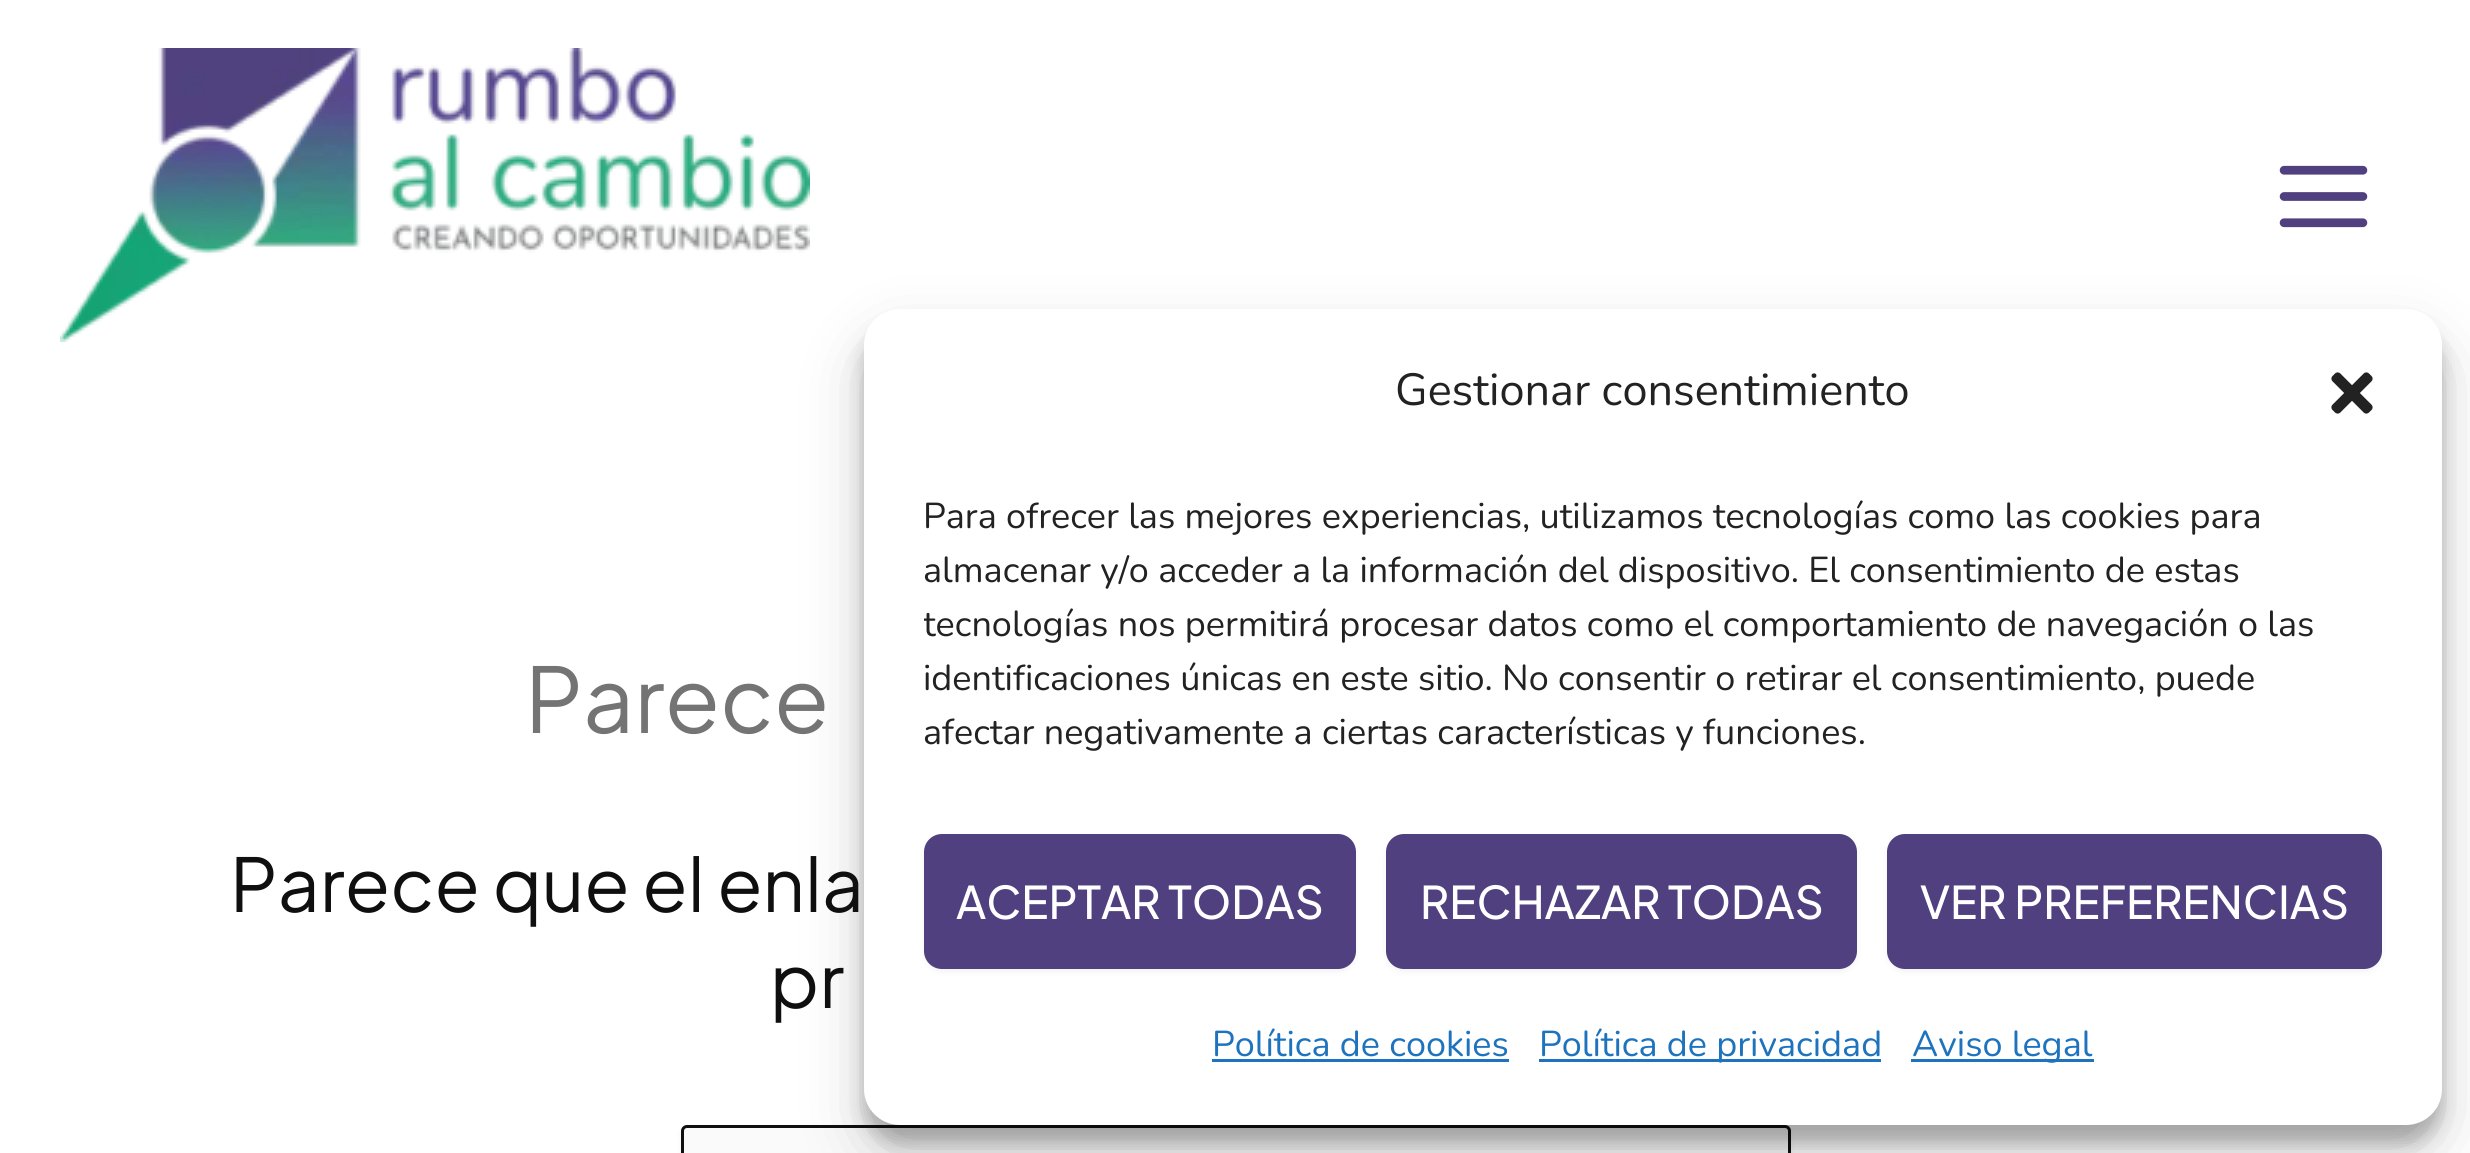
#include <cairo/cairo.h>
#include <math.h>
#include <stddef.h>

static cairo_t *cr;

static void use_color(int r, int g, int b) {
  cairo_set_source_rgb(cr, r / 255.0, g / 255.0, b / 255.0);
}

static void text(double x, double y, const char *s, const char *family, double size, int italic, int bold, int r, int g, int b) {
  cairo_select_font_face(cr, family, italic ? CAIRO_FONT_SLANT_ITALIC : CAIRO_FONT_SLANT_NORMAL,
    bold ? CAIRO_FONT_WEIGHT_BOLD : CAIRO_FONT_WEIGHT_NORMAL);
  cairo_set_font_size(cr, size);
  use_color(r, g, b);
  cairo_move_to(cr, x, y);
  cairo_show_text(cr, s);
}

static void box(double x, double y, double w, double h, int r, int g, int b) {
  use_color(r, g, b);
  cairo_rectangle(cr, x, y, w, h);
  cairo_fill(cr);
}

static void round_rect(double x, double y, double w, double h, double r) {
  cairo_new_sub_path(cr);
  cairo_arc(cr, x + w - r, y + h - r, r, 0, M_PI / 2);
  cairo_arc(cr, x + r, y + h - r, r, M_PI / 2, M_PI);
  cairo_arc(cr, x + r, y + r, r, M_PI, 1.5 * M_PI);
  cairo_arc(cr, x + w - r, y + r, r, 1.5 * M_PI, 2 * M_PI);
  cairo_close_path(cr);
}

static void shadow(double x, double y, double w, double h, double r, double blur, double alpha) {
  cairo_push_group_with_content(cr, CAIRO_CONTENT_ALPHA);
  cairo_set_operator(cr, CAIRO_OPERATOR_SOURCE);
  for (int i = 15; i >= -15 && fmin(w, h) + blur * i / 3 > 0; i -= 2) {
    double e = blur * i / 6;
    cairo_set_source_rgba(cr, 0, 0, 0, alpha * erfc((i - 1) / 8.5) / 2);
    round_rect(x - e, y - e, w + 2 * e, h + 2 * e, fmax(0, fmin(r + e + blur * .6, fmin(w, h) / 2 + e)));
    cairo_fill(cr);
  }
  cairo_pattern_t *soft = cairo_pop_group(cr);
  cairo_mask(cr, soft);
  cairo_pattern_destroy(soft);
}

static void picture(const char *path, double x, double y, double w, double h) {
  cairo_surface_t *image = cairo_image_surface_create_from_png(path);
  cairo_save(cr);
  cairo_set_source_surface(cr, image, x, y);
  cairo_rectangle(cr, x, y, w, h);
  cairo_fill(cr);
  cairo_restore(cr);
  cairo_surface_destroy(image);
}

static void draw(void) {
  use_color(255, 255, 255);
  cairo_paint(cr);
  picture("img_01.png", 60, 48, 750, 294);
  picture("img_02.png", 2279, 165, 89, 63);
  use_color(0, 0, 0);
  shadow(681, 1128, 1110, 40, 6, 3, 0.05);
  use_color(250, 250, 250);
  round_rect(682.5, 1126.5, 1107, 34, 4.5);
  cairo_fill_preserve(cr);
  use_color(15, 15, 15);
  cairo_set_line_width(cr, 3);
  cairo_stroke(cr);
  use_color(0, 0, 0);
  shadow(864, 327, 1578, 816, 36, 9, 0.23);
  shadow(864, 339, 1578, 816, 36, 30, 0.19);
  use_color(255, 255, 255);
  round_rect(864, 309, 1578, 816, 36);
  cairo_fill(cr);
  picture("img_03.png", 2331, 372, 42, 42);
  use_color(0, 0, 0);
  shadow(924, 837, 432, 135, 18, 3, 0.05);
  use_color(80, 64, 127);
  round_rect(925.5, 835.5, 429, 132, 16.5);
  cairo_fill_preserve(cr);
  cairo_stroke(cr);
  use_color(0, 0, 0);
  shadow(1386, 837, 471, 135, 18, 3, 0.05);
  use_color(80, 64, 127);
  round_rect(1387.5, 835.5, 468, 132, 16.5);
  cairo_fill_preserve(cr);
  cairo_stroke(cr);
  use_color(0, 0, 0);
  shadow(1887, 837, 495, 135, 18, 3, 0.05);
  use_color(80, 64, 127);
  round_rect(1888.5, 835.5, 492, 132, 16.5);
  cairo_fill_preserve(cr);
  cairo_stroke(cr);
  box(1212, 1059, 297, 3, 30, 115, 190);
  box(1539, 1059, 342, 3, 30, 115, 190);
  box(1911, 1059, 183, 3, 30, 115, 190);
  text(525, 733, "Parece", "Plus Jakarta Sans", 90, 0, 0, 117, 116, 116);
  text(230, 912, "Parece que el enla", "Plus Jakarta Sans", 73.9, 0, 0, 15, 15, 15);
  text(770, 1008, "pr", "Plus Jakarta Sans", 73.9, 0, 0, 15, 15, 15);
  text(1395, 405, "Gestionar consentimiento", "Nunito ExtraLight", 45, 0, 0, 34, 34, 34);
  text(923, 528, "Para ofrecer las mejores experiencias, utilizamos tecnologías como las cookies para", "Nunito ExtraLight", 36, 0, 0, 34, 34, 34);
  text(923, 582, "almacenar y/o acceder a la información del dispositivo. El consentimiento de estas", "Nunito ExtraLight", 36, 0, 0, 34, 34, 34);
  cairo_save(cr);
  cairo_rectangle(cr, 924, 489, 1458, 285);
  cairo_clip(cr);
  text(923, 636, "tecnologías nos permitirá procesar datos como el comportamiento de navegación o las", "Nunito ExtraLight", 36, 0, 0, 34, 34, 34);
  cairo_restore(cr);
  text(923, 690, "identificaciones únicas en este sitio. No consentir o retirar el consentimiento, puede", "Nunito ExtraLight", 36, 0, 0, 34, 34, 34);
  text(923, 744, "afectar negativamente a ciertas características y funciones.", "Nunito ExtraLight", 36, 0, 0, 34, 34, 34);
  text(956, 919, "ACEPTAR TODAS", "Plus Jakarta Sans Medium", 45, 0, 0, 255, 255, 255);
  text(1420, 919, "RECHAZAR TODAS", "Plus Jakarta Sans Medium", 45, 0, 0, 255, 255, 255);
  text(1920, 919, "VER PREFERENCIAS", "Plus Jakarta Sans Medium", 45, 0, 0, 255, 255, 255);
  text(1212, 1056, "Política de cookies", "Nunito ExtraLight", 36, 0, 0, 30, 115, 190);
  text(1539, 1056, "Política de privacidad", "Nunito ExtraLight", 36, 0, 0, 30, 115, 190);
  text(1912, 1056, "Aviso legal", "Nunito ExtraLight", 36, 0, 0, 30, 115, 190);
}

int main(void) {
  cairo_surface_t *surface = cairo_image_surface_create(CAIRO_FORMAT_RGB24, 2470, 1153);
  cr = cairo_create(surface);
  cairo_font_options_t *options = cairo_font_options_create();
  cairo_font_options_set_hint_metrics(options, CAIRO_HINT_METRICS_OFF);
  cairo_font_options_set_hint_style(options, CAIRO_HINT_STYLE_NONE);
  cairo_set_font_options(cr, options);
  cairo_set_miter_limit(cr, 4);
  draw();
  cairo_surface_write_to_png(surface, "out.png");
  cairo_font_options_destroy(options);
  cairo_destroy(cr);
  cairo_surface_destroy(surface);
  return 0;
}
